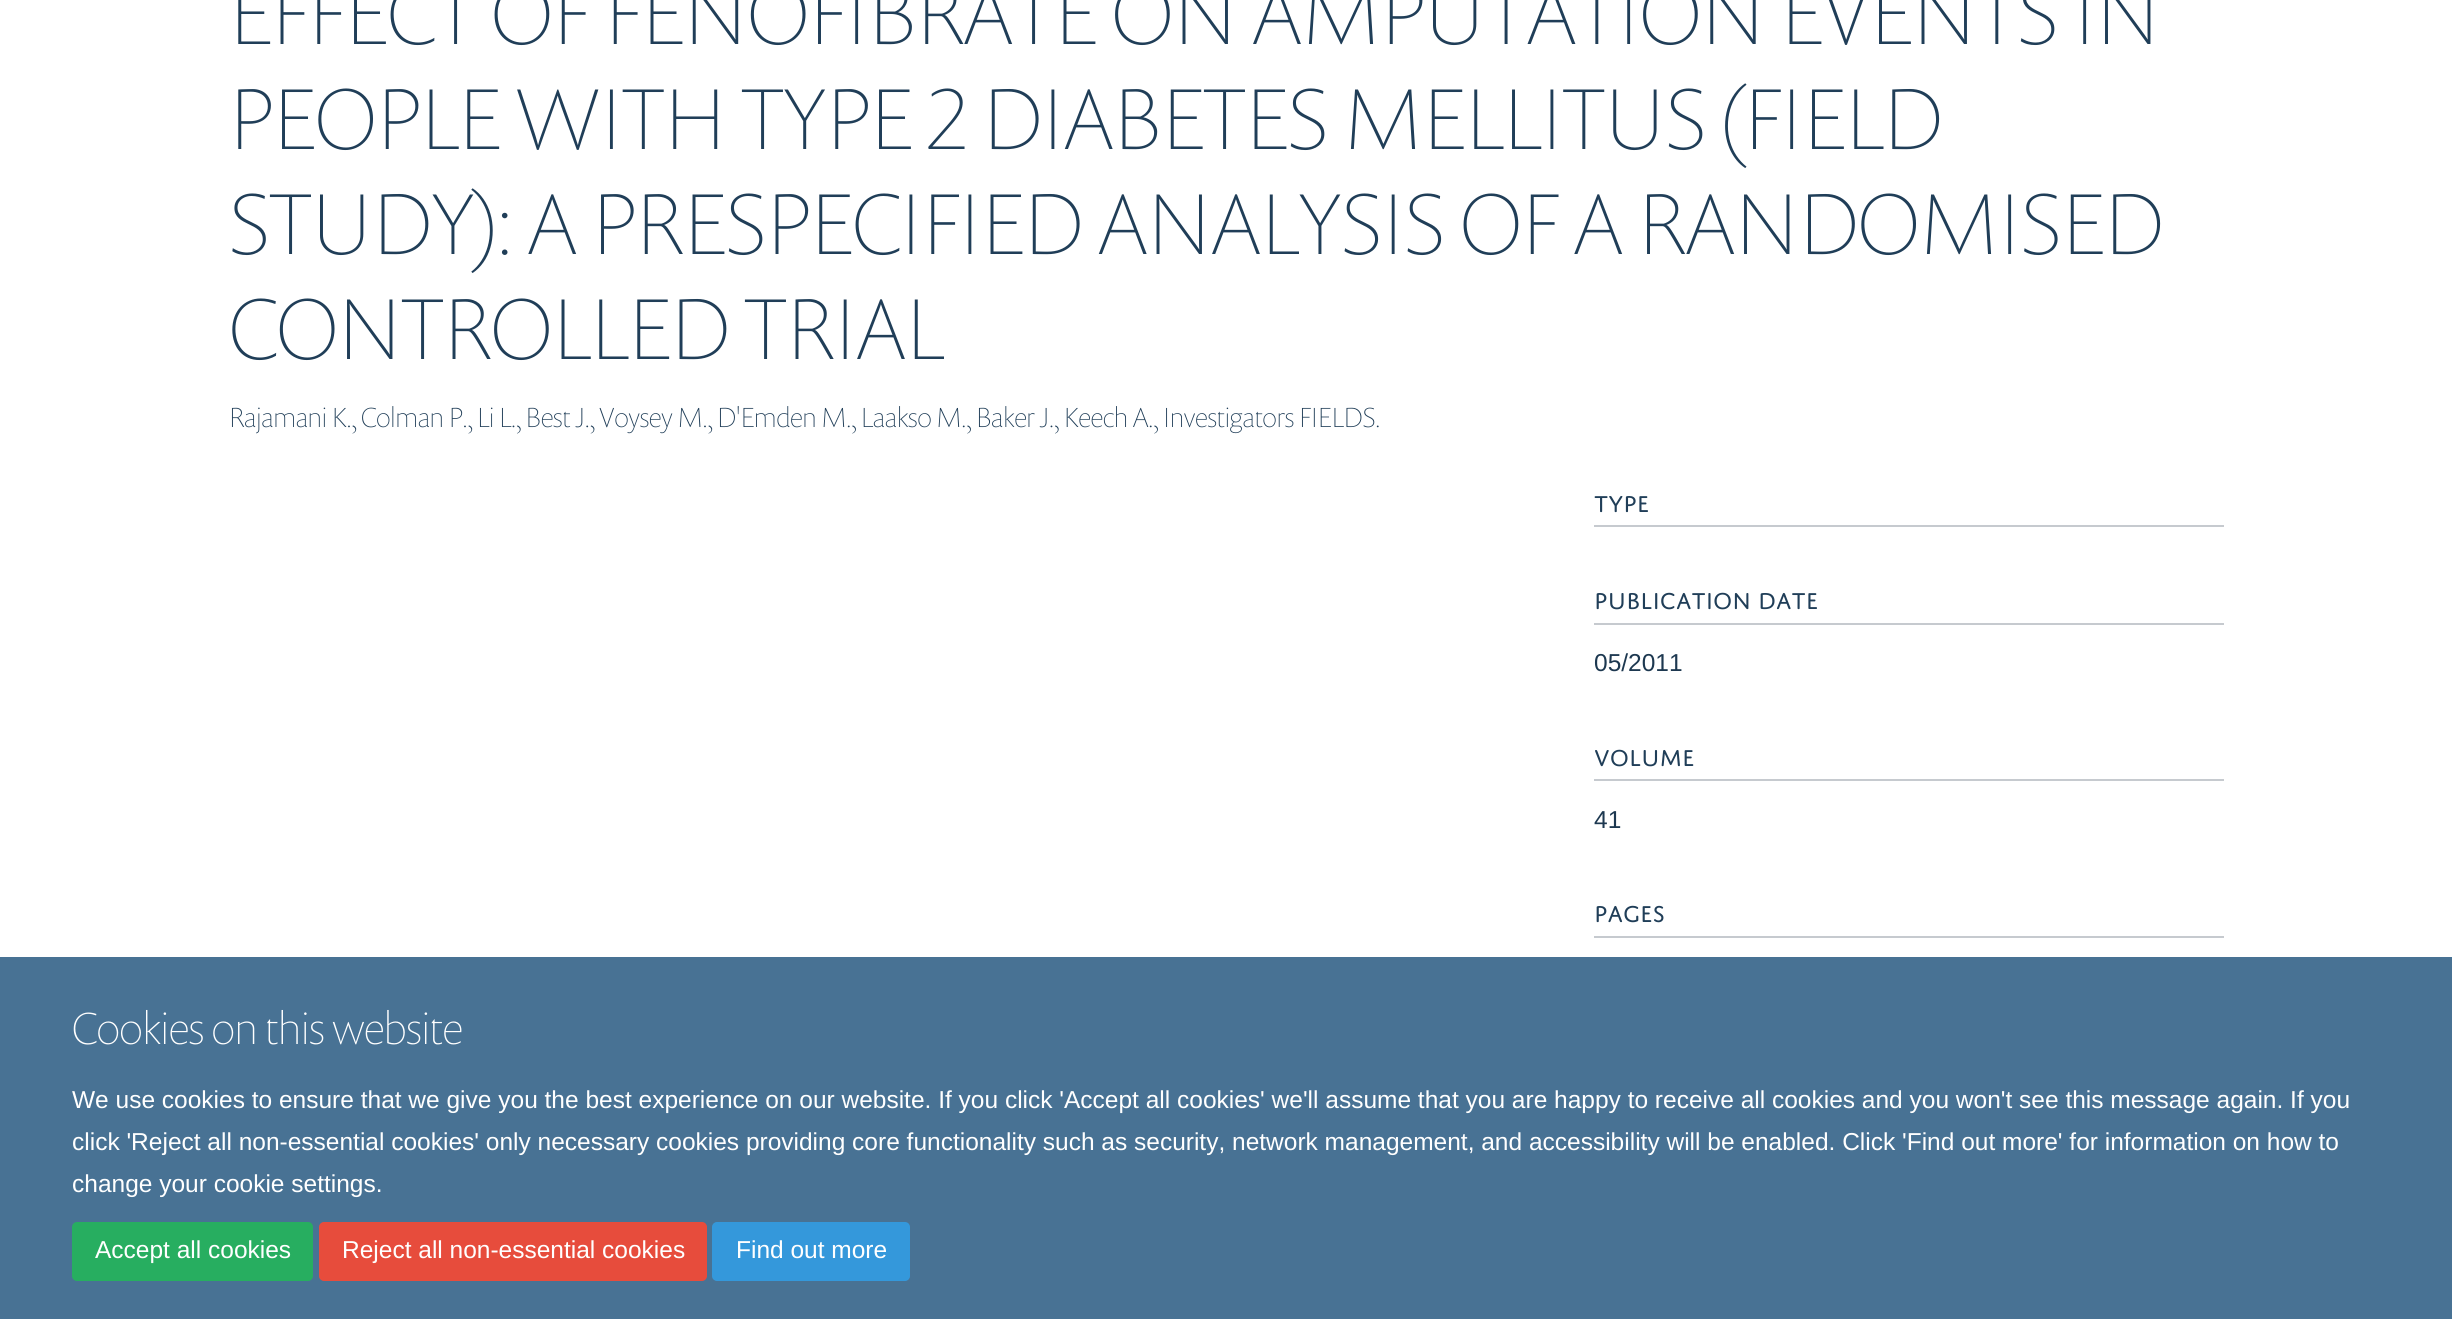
#include <cairo/cairo.h>
#include <math.h>
#include <stddef.h>

static cairo_t *cr;

static void use_color(int r, int g, int b) {
  cairo_set_source_rgb(cr, r / 255.0, g / 255.0, b / 255.0);
}

static void text(double x, double y, const char *s, const char *family, double size, int italic, int bold, int r, int g, int b) {
  cairo_select_font_face(cr, family, italic ? CAIRO_FONT_SLANT_ITALIC : CAIRO_FONT_SLANT_NORMAL,
    bold ? CAIRO_FONT_WEIGHT_BOLD : CAIRO_FONT_WEIGHT_NORMAL);
  cairo_set_font_size(cr, size);
  use_color(r, g, b);
  cairo_move_to(cr, x, y);
  cairo_show_text(cr, s);
}

static void box(double x, double y, double w, double h, int r, int g, int b) {
  use_color(r, g, b);
  cairo_rectangle(cr, x, y, w, h);
  cairo_fill(cr);
}

static void round_rect(double x, double y, double w, double h, double r) {
  cairo_new_sub_path(cr);
  cairo_arc(cr, x + w - r, y + h - r, r, 0, M_PI / 2);
  cairo_arc(cr, x + r, y + h - r, r, M_PI / 2, M_PI);
  cairo_arc(cr, x + r, y + r, r, M_PI, 1.5 * M_PI);
  cairo_arc(cr, x + w - r, y + r, r, 1.5 * M_PI, 2 * M_PI);
  cairo_close_path(cr);
}

static void draw(void) {
  use_color(255, 255, 255);
  cairo_paint(cr);
  box(1594, 525, 630, 2, 198, 202, 207);
  box(1594, 623, 630, 2, 198, 202, 207);
  box(1594, 779, 630, 2, 198, 202, 207);
  box(1594, 936, 630, 2, 198, 202, 207);
  box(0, 957, 2452, 362, 72, 114, 148);
  use_color(39, 174, 96);
  round_rect(73, 1223, 239, 57, 4);
  cairo_fill_preserve(cr);
  cairo_stroke(cr);
  use_color(231, 76, 60);
  round_rect(320, 1223, 386, 57, 4);
  cairo_fill_preserve(cr);
  cairo_stroke(cr);
  use_color(52, 152, 219);
  round_rect(713, 1223, 196, 57, 4);
  cairo_fill_preserve(cr);
  cairo_stroke(cr);
  text(229, 44, "EFFECT OF FENOFIBRATE ON AMPUTATION EVENTS IN", "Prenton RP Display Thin", 87.5, 0, 0, 32, 62, 88);
  text(229, 149, "PEOPLE WITH TYPE 2 DIABETES MELLITUS (FIELD", "Prenton RP Display Thin", 87.5, 0, 0, 32, 62, 88);
  text(229, 254, "STUDY): A PRESPECIFIED ANALYSIS OF A RANDOMISED", "Prenton RP Display Thin", 87.5, 0, 0, 32, 62, 88);
  text(229, 359, "CONTROLLED TRIAL", "Prenton RP Display Thin", 87.5, 0, 0, 32, 62, 88);
  text(229, 427, "Rajamani K., Colman P., Li L., Best J., Voysey M., D'Emden M., Laakso M., Baker J., Keech A., Investigators FIELDS.", "Prenton RP Display Thin", 28, 0, 0, 32, 62, 88);
  text(1594, 512, "TYPE", "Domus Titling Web", 24.5, 0, 0, 32, 62, 88);
  text(1594, 609, "PUBLICATION DATE", "Domus Titling Web", 24.5, 0, 0, 32, 62, 88);
  text(1594, 671, "05/2011", "Liberation Sans", 24.5, 0, 0, 29, 56, 80);
  text(1594, 766, "VOLUME", "Domus Titling Web", 24.5, 0, 0, 32, 62, 88);
  text(1594, 828, "41", "Liberation Sans", 24.5, 0, 0, 29, 56, 80);
  text(1594, 922, "PAGES", "Domus Titling Web", 24.5, 0, 0, 32, 62, 88);
  text(72, 1044, "Cookies on this website", "Prenton RP Display Thin", 45.5, 0, 0, 255, 255, 255);
  text(72, 1108, "We use cookies to ensure that we give you the best experience on our website. If you click 'Accept all cookies' we'll assume that you are happy to receive all cookies and you won't see this message again. If you", "Liberation Sans", 24.5, 0, 0, 255, 255, 255);
  text(72, 1150, "click 'Reject all non-essential cookies' only necessary cookies providing core functionality such as security, network management, and accessibility will be enabled. Click 'Find out more' for information on how to", "Liberation Sans", 24.5, 0, 0, 255, 255, 255);
  text(72, 1192, "change your cookie settings.", "Liberation Sans", 24.5, 0, 0, 255, 255, 255);
  text(95, 1258, "Accept all cookies", "Liberation Sans", 24.5, 0, 0, 255, 255, 255);
  text(342, 1258, "Reject all non-essential cookies", "Liberation Sans", 24.5, 0, 0, 255, 255, 255);
  text(736, 1258, "Find out more", "Liberation Sans", 24.5, 0, 0, 255, 255, 255);
}

int main(void) {
  cairo_surface_t *surface = cairo_image_surface_create(CAIRO_FORMAT_RGB24, 2452, 1319);
  cr = cairo_create(surface);
  cairo_font_options_t *options = cairo_font_options_create();
  cairo_font_options_set_hint_metrics(options, CAIRO_HINT_METRICS_OFF);
  cairo_font_options_set_hint_style(options, CAIRO_HINT_STYLE_NONE);
  cairo_set_font_options(cr, options);
  cairo_set_miter_limit(cr, 4);
  draw();
  cairo_surface_write_to_png(surface, "out.png");
  cairo_font_options_destroy(options);
  cairo_destroy(cr);
  cairo_surface_destroy(surface);
  return 0;
}
